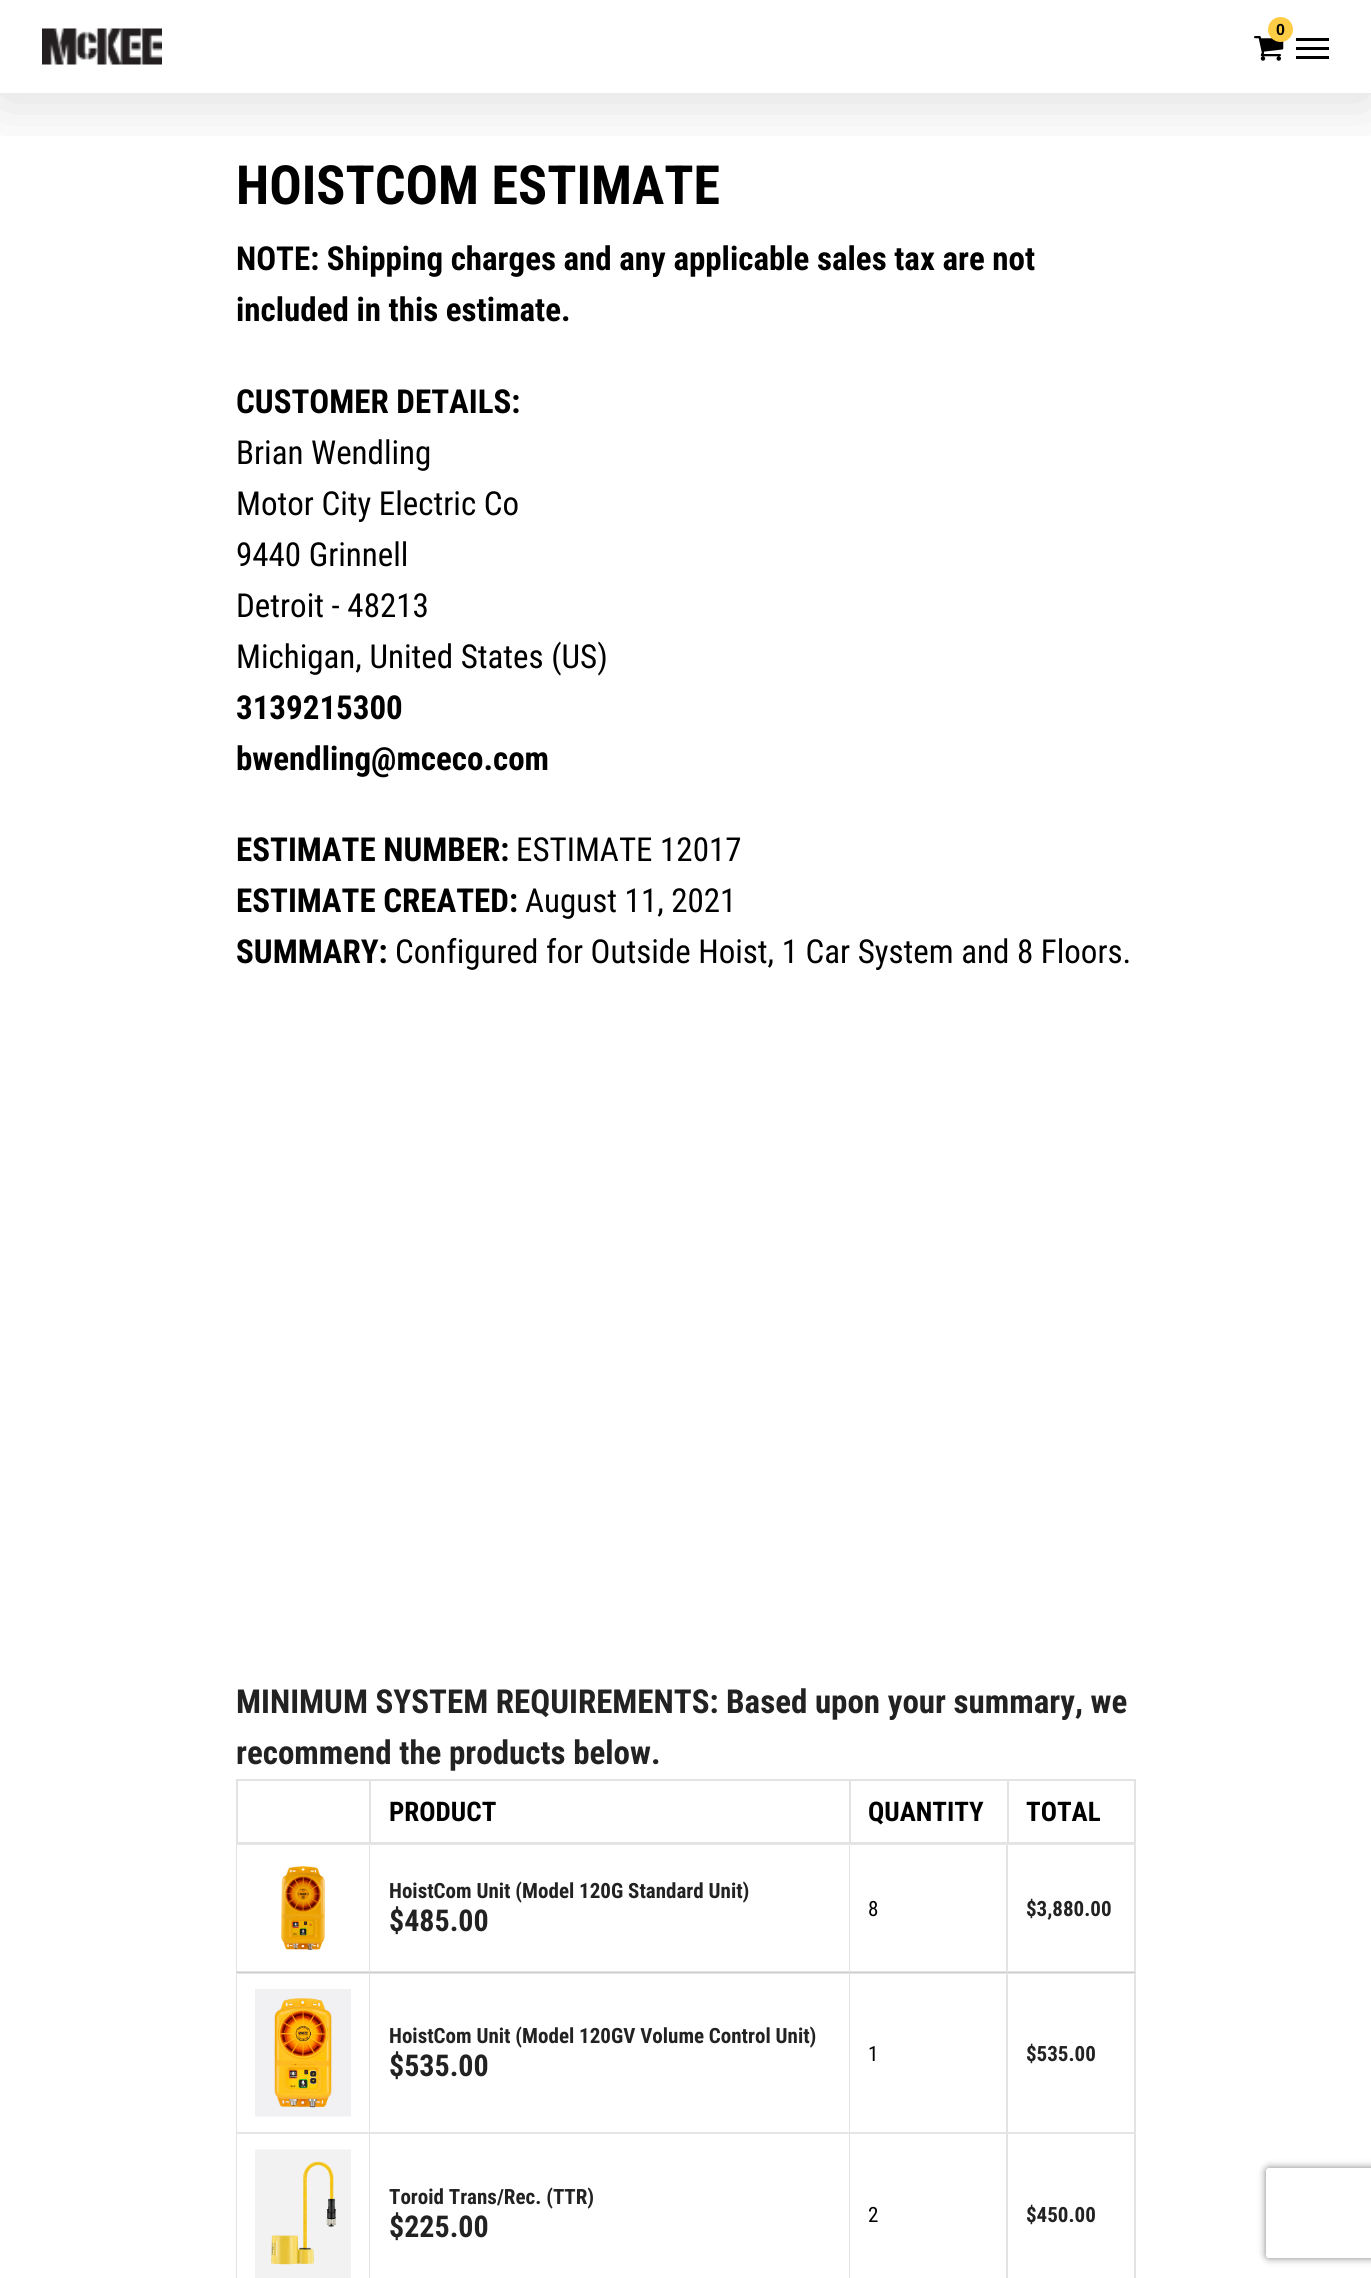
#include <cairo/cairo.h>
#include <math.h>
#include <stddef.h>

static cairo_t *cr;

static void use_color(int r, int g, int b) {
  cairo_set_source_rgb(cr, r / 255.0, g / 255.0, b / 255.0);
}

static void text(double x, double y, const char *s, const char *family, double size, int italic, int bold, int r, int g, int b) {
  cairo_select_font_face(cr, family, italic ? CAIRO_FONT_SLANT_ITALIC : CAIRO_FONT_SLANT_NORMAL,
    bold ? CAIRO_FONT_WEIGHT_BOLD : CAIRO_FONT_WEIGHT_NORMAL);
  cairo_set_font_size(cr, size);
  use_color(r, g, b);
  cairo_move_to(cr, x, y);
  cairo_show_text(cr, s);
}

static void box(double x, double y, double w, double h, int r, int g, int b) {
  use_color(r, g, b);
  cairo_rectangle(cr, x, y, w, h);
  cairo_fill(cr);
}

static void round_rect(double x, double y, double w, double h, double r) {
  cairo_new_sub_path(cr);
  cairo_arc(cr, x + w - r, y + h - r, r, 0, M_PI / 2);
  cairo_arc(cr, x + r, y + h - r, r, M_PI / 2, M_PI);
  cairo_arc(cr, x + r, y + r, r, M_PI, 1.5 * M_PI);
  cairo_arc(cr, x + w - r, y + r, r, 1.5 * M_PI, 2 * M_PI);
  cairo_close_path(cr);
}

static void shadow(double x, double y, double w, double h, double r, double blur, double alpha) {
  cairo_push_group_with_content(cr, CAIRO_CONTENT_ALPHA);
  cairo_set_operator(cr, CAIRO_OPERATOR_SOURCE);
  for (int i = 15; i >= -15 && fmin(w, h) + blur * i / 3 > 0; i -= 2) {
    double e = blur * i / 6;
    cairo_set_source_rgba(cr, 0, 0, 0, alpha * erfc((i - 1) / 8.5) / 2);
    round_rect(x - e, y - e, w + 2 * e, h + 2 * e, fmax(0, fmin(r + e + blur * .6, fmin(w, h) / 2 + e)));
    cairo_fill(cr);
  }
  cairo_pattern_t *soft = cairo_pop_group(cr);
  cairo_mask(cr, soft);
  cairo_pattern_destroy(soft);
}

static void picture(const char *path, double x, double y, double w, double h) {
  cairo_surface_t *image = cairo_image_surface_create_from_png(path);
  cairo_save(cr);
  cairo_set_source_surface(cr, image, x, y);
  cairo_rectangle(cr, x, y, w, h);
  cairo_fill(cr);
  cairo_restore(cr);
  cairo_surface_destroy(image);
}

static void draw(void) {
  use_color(255, 255, 255);
  cairo_paint(cr);
  cairo_save(cr);
  cairo_rectangle(cr, 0, 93, 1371, 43);
  cairo_clip(cr);
  use_color(0, 0, 0);
  shadow(0, 5, 1371, 93, 0, 34, 0.15);
  cairo_restore(cr);
  picture("img_01.png", 42, 28, 120, 37);
  picture("img_02.png", 1254, 36, 30, 25);
  use_color(255, 204, 69);
  cairo_arc(cr, 1280.5, 29.5, 12.5, 0, 2 * M_PI);
  cairo_fill(cr);
  box(1296, 38, 33, 3, 0, 0, 0);
  box(1296, 56, 33, 3, 0, 0, 0);
  box(1296, 47, 33, 3, 0, 0, 0);
  cairo_rectangle(cr, 237, 1780, 133, 63);
  use_color(227, 227, 227);
  cairo_stroke(cr);
  box(371, 1779, 637, 2, 227, 227, 227);
  box(849, 1779, 2, 65, 227, 227, 227);
  box(371, 1842, 480, 2, 227, 227, 227);
  box(1007, 1779, 2, 65, 227, 227, 227);
  box(851, 1842, 157, 2, 227, 227, 227);
  box(1008, 1779, 128, 2, 227, 227, 227);
  box(1134, 1779, 2, 65, 227, 227, 227);
  box(1008, 1842, 128, 2, 227, 227, 227);
  use_color(230, 230, 230);
  cairo_new_path(cr);
  cairo_move_to(cr, 236, 1844);
  cairo_line_to(cr, 370, 1844);
  cairo_line_to(cr, 369, 1845);
  cairo_line_to(cr, 237, 1845);
  cairo_close_path(cr);
  cairo_fill(cr);
  use_color(227, 227, 227);
  cairo_new_path(cr);
  cairo_move_to(cr, 370, 1844);
  cairo_line_to(cr, 370, 1972);
  cairo_line_to(cr, 369, 1971);
  cairo_line_to(cr, 369, 1845);
  cairo_close_path(cr);
  cairo_fill(cr);
  box(236, 1971, 135, 2, 227, 227, 227);
  cairo_new_path(cr);
  cairo_move_to(cr, 236, 1972);
  cairo_line_to(cr, 236, 1844);
  cairo_line_to(cr, 237, 1845);
  cairo_line_to(cr, 237, 1971);
  cairo_close_path(cr);
  cairo_fill(cr);
  picture("img_03.png", 281, 1866, 44, 84);
  use_color(230, 230, 230);
  cairo_new_path(cr);
  cairo_move_to(cr, 370, 1844);
  cairo_line_to(cr, 850, 1844);
  cairo_line_to(cr, 849, 1845);
  cairo_line_to(cr, 370, 1845);
  cairo_close_path(cr);
  cairo_fill(cr);
  use_color(227, 227, 227);
  cairo_new_path(cr);
  cairo_move_to(cr, 850, 1844);
  cairo_line_to(cr, 850, 1972);
  cairo_line_to(cr, 849, 1971);
  cairo_line_to(cr, 849, 1845);
  cairo_close_path(cr);
  cairo_fill(cr);
  box(371, 1971, 480, 2, 227, 227, 227);
  use_color(230, 230, 230);
  cairo_new_path(cr);
  cairo_move_to(cr, 850, 1844);
  cairo_line_to(cr, 1008, 1844);
  cairo_line_to(cr, 1006, 1845);
  cairo_line_to(cr, 850, 1845);
  cairo_close_path(cr);
  cairo_fill(cr);
  use_color(227, 227, 227);
  cairo_new_path(cr);
  cairo_move_to(cr, 1008, 1844);
  cairo_line_to(cr, 1008, 1972);
  cairo_line_to(cr, 1006, 1971);
  cairo_line_to(cr, 1006, 1845);
  cairo_close_path(cr);
  cairo_fill(cr);
  box(851, 1971, 157, 2, 227, 227, 227);
  use_color(230, 230, 230);
  cairo_new_path(cr);
  cairo_move_to(cr, 1008, 1844);
  cairo_line_to(cr, 1136, 1844);
  cairo_line_to(cr, 1134, 1845);
  cairo_line_to(cr, 1008, 1845);
  cairo_close_path(cr);
  cairo_fill(cr);
  use_color(227, 227, 227);
  cairo_new_path(cr);
  cairo_move_to(cr, 1136, 1844);
  cairo_line_to(cr, 1136, 1972);
  cairo_line_to(cr, 1134, 1971);
  cairo_line_to(cr, 1134, 1845);
  cairo_close_path(cr);
  cairo_fill(cr);
  box(1008, 1971, 128, 2, 227, 227, 227);
  cairo_set_source_rgba(cr, 0, 0, 0, 0.1);
  cairo_new_path(cr);
  cairo_move_to(cr, 236, 1972);
  cairo_line_to(cr, 370, 1972);
  cairo_line_to(cr, 369, 1974);
  cairo_line_to(cr, 237, 1974);
  cairo_close_path(cr);
  cairo_fill(cr);
  use_color(227, 227, 227);
  cairo_new_path(cr);
  cairo_move_to(cr, 370, 1972);
  cairo_line_to(cr, 370, 2133);
  cairo_line_to(cr, 369, 2132);
  cairo_line_to(cr, 369, 1974);
  cairo_close_path(cr);
  cairo_fill(cr);
  box(236, 2132, 135, 1, 227, 227, 227);
  cairo_new_path(cr);
  cairo_move_to(cr, 236, 2133);
  cairo_line_to(cr, 236, 1972);
  cairo_line_to(cr, 237, 1974);
  cairo_line_to(cr, 237, 2132);
  cairo_close_path(cr);
  cairo_fill(cr);
  picture("img_04.png", 255, 1989, 96, 128);
  cairo_set_source_rgba(cr, 0, 0, 0, 0.1);
  cairo_new_path(cr);
  cairo_move_to(cr, 370, 1972);
  cairo_line_to(cr, 850, 1972);
  cairo_line_to(cr, 849, 1974);
  cairo_line_to(cr, 370, 1974);
  cairo_close_path(cr);
  cairo_fill(cr);
  use_color(227, 227, 227);
  cairo_new_path(cr);
  cairo_move_to(cr, 850, 1972);
  cairo_line_to(cr, 850, 2133);
  cairo_line_to(cr, 849, 2132);
  cairo_line_to(cr, 849, 1974);
  cairo_close_path(cr);
  cairo_fill(cr);
  box(371, 2132, 480, 1, 227, 227, 227);
  cairo_set_source_rgba(cr, 0, 0, 0, 0.1);
  cairo_new_path(cr);
  cairo_move_to(cr, 850, 1972);
  cairo_line_to(cr, 1008, 1972);
  cairo_line_to(cr, 1006, 1974);
  cairo_line_to(cr, 850, 1974);
  cairo_close_path(cr);
  cairo_fill(cr);
  use_color(227, 227, 227);
  cairo_new_path(cr);
  cairo_move_to(cr, 1008, 1972);
  cairo_line_to(cr, 1008, 2133);
  cairo_line_to(cr, 1006, 2132);
  cairo_line_to(cr, 1006, 1974);
  cairo_close_path(cr);
  cairo_fill(cr);
  box(851, 2132, 157, 1, 227, 227, 227);
  cairo_set_source_rgba(cr, 0, 0, 0, 0.1);
  cairo_new_path(cr);
  cairo_move_to(cr, 1008, 1972);
  cairo_line_to(cr, 1136, 1972);
  cairo_line_to(cr, 1134, 1974);
  cairo_line_to(cr, 1008, 1974);
  cairo_close_path(cr);
  cairo_fill(cr);
  use_color(227, 227, 227);
  cairo_new_path(cr);
  cairo_move_to(cr, 1136, 1972);
  cairo_line_to(cr, 1136, 2133);
  cairo_line_to(cr, 1134, 2132);
  cairo_line_to(cr, 1134, 1974);
  cairo_close_path(cr);
  cairo_fill(cr);
  box(1008, 2132, 128, 1, 227, 227, 227);
  use_color(230, 230, 230);
  cairo_new_path(cr);
  cairo_move_to(cr, 236, 2133);
  cairo_line_to(cr, 370, 2133);
  cairo_line_to(cr, 369, 2134);
  cairo_line_to(cr, 237, 2134);
  cairo_close_path(cr);
  cairo_fill(cr);
  use_color(227, 227, 227);
  cairo_new_path(cr);
  cairo_move_to(cr, 370, 2133);
  cairo_line_to(cr, 370, 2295);
  cairo_line_to(cr, 369, 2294);
  cairo_line_to(cr, 369, 2134);
  cairo_close_path(cr);
  cairo_fill(cr);
  cairo_new_path(cr);
  cairo_move_to(cr, 236, 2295);
  cairo_line_to(cr, 236, 2133);
  cairo_line_to(cr, 237, 2134);
  cairo_line_to(cr, 237, 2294);
  cairo_close_path(cr);
  cairo_fill(cr);
  picture("img_05.png", 255, 2149, 96, 129);
  use_color(230, 230, 230);
  cairo_new_path(cr);
  cairo_move_to(cr, 370, 2133);
  cairo_line_to(cr, 850, 2133);
  cairo_line_to(cr, 849, 2134);
  cairo_line_to(cr, 370, 2134);
  cairo_close_path(cr);
  cairo_fill(cr);
  use_color(227, 227, 227);
  cairo_new_path(cr);
  cairo_move_to(cr, 850, 2133);
  cairo_line_to(cr, 850, 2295);
  cairo_line_to(cr, 849, 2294);
  cairo_line_to(cr, 849, 2134);
  cairo_close_path(cr);
  cairo_fill(cr);
  use_color(230, 230, 230);
  cairo_new_path(cr);
  cairo_move_to(cr, 850, 2133);
  cairo_line_to(cr, 1008, 2133);
  cairo_line_to(cr, 1006, 2134);
  cairo_line_to(cr, 850, 2134);
  cairo_close_path(cr);
  cairo_fill(cr);
  use_color(227, 227, 227);
  cairo_new_path(cr);
  cairo_move_to(cr, 1008, 2133);
  cairo_line_to(cr, 1008, 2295);
  cairo_line_to(cr, 1006, 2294);
  cairo_line_to(cr, 1006, 2134);
  cairo_close_path(cr);
  cairo_fill(cr);
  use_color(230, 230, 230);
  cairo_new_path(cr);
  cairo_move_to(cr, 1008, 2133);
  cairo_line_to(cr, 1136, 2133);
  cairo_line_to(cr, 1134, 2134);
  cairo_line_to(cr, 1008, 2134);
  cairo_close_path(cr);
  cairo_fill(cr);
  use_color(227, 227, 227);
  cairo_new_path(cr);
  cairo_move_to(cr, 1136, 2133);
  cairo_line_to(cr, 1136, 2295);
  cairo_line_to(cr, 1134, 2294);
  cairo_line_to(cr, 1134, 2134);
  cairo_close_path(cr);
  cairo_fill(cr);
  cairo_save(cr);
  cairo_set_fill_rule(cr, CAIRO_FILL_RULE_EVEN_ODD);
  cairo_new_path(cr);
  cairo_move_to(cr, 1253, 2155);
  cairo_line_to(cr, 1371, 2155);
  cairo_line_to(cr, 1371, 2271);
  cairo_line_to(cr, 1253, 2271);
  cairo_close_path(cr);
  cairo_move_to(cr, 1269, 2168);
  cairo_line_to(cr, 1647, 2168);
  cairo_curve_to(cr, 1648.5, 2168, 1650, 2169.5, 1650, 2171);
  cairo_line_to(cr, 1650, 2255);
  cairo_curve_to(cr, 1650, 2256.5, 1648.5, 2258, 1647, 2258);
  cairo_line_to(cr, 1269, 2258);
  cairo_curve_to(cr, 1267.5, 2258, 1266, 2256.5, 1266, 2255);
  cairo_line_to(cr, 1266, 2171);
  cairo_curve_to(cr, 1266, 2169.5, 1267.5, 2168, 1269, 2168);
  cairo_close_path(cr);
  cairo_clip(cr);
  use_color(128, 128, 128);
  shadow(1266, 2168, 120, 90, 3, 4, 1);
  cairo_restore(cr);
  text(1276, 35, "0", "Liberation Sans", 16, 0, 1, 0, 0, 0);
  text(236, 204, "HOISTCOM ESTIMATE", "Roboto Condensed", 54, 0, 1, 0, 0, 0);
  text(236, 270, "NOTE: Shipping charges and any applicable sales tax are not", "Roboto Condensed", 33, 0, 1, 0, 0, 0);
  text(236, 321, "included in this estimate.", "Roboto Condensed", 33, 0, 1, 0, 0, 0);
  text(236, 413, "CUSTOMER DETAILS:", "Roboto Condensed", 33, 0, 1, 0, 0, 0);
  text(236, 464, "Brian Wendling", "Roboto Condensed", 33, 0, 0, 0, 0, 0);
  text(236, 515, "Motor City Electric Co", "Roboto Condensed", 33, 0, 0, 0, 0, 0);
  text(236, 566, "9440 Grinnell", "Roboto Condensed", 33, 0, 0, 0, 0, 0);
  text(236, 617, "Detroit - 48213", "Roboto Condensed", 33, 0, 0, 0, 0, 0);
  text(236, 668, "Michigan, United States (US)", "Roboto Condensed", 33, 0, 0, 0, 0, 0);
  text(236, 719, "3139215300", "Roboto Condensed", 33, 0, 1, 0, 0, 0);
  text(236, 770, "bwendling@mceco.com", "Roboto Condensed", 33, 0, 1, 0, 0, 0);
  text(236, 861, "ESTIMATE NUMBER:", "Roboto Condensed", 33, 0, 1, 0, 0, 0);
  text(516, 861, "ESTIMATE 12017", "Roboto Condensed", 33, 0, 0, 0, 0, 0);
  text(236, 912, "ESTIMATE CREATED:", "Roboto Condensed", 33, 0, 1, 0, 0, 0);
  text(525, 912, "August 11, 2021", "Roboto Condensed", 33, 0, 0, 0, 0, 0);
  text(236, 963, "SUMMARY:", "Roboto Condensed", 33, 0, 1, 0, 0, 0);
  text(395, 963, "Configured for Outside Hoist, 1 Car System and 8 Floors.", "Roboto Condensed", 33, 0, 0, 0, 0, 0);
  text(236, 1713, "MINIMUM SYSTEM REQUIREMENTS: Based upon your summary, we", "Roboto Condensed", 33, 0, 1, 34, 34, 34);
  text(236, 1764, "recommend the products below.", "Roboto Condensed", 33, 0, 1, 34, 34, 34);
  text(389, 1821, "PRODUCT", "Roboto Condensed", 27, 0, 1, 0, 0, 0);
  text(868, 1821, "QUANTITY", "Roboto Condensed", 27, 0, 1, 0, 0, 0);
  text(1026, 1821, "TOTAL", "Roboto Condensed", 27, 0, 1, 0, 0, 0);
  text(389, 1898, "HoistCom Unit (Model 120G Standard Unit)", "Roboto Condensed", 21, 0, 1, 34, 34, 34);
  text(389, 1931, "$485.00", "Roboto Condensed", 30, 0, 1, 34, 34, 34);
  text(868, 1916, "8", "Roboto Condensed", 21, 0, 0, 0, 0, 0);
  text(1026, 1916, "$3,880.00", "Roboto Condensed", 21, 0, 1, 34, 34, 34);
  text(389, 2043, "HoistCom Unit (Model 120GV Volume Control Unit)", "Roboto Condensed", 21, 0, 1, 34, 34, 34);
  text(389, 2076, "$535.00", "Roboto Condensed", 30, 0, 1, 34, 34, 34);
  text(868, 2061, "1", "Roboto Condensed", 21, 0, 0, 0, 0, 0);
  text(1026, 2061, "$535.00", "Roboto Condensed", 21, 0, 1, 34, 34, 34);
  text(389, 2204, "Toroid Trans/Rec. (TTR)", "Roboto Condensed", 21, 0, 1, 34, 34, 34);
  text(389, 2237, "$225.00", "Roboto Condensed", 30, 0, 1, 34, 34, 34);
  text(868, 2222, "2", "Roboto Condensed", 21, 0, 0, 0, 0, 0);
  text(1026, 2222, "$450.00", "Roboto Condensed", 21, 0, 1, 34, 34, 34);
}

int main(void) {
  cairo_surface_t *surface = cairo_image_surface_create(CAIRO_FORMAT_RGB24, 1371, 2278);
  cr = cairo_create(surface);
  cairo_font_options_t *options = cairo_font_options_create();
  cairo_font_options_set_hint_metrics(options, CAIRO_HINT_METRICS_OFF);
  cairo_font_options_set_hint_style(options, CAIRO_HINT_STYLE_NONE);
  cairo_set_font_options(cr, options);
  cairo_set_miter_limit(cr, 4);
  draw();
  cairo_surface_write_to_png(surface, "out.png");
  cairo_font_options_destroy(options);
  cairo_destroy(cr);
  cairo_surface_destroy(surface);
  return 0;
}
